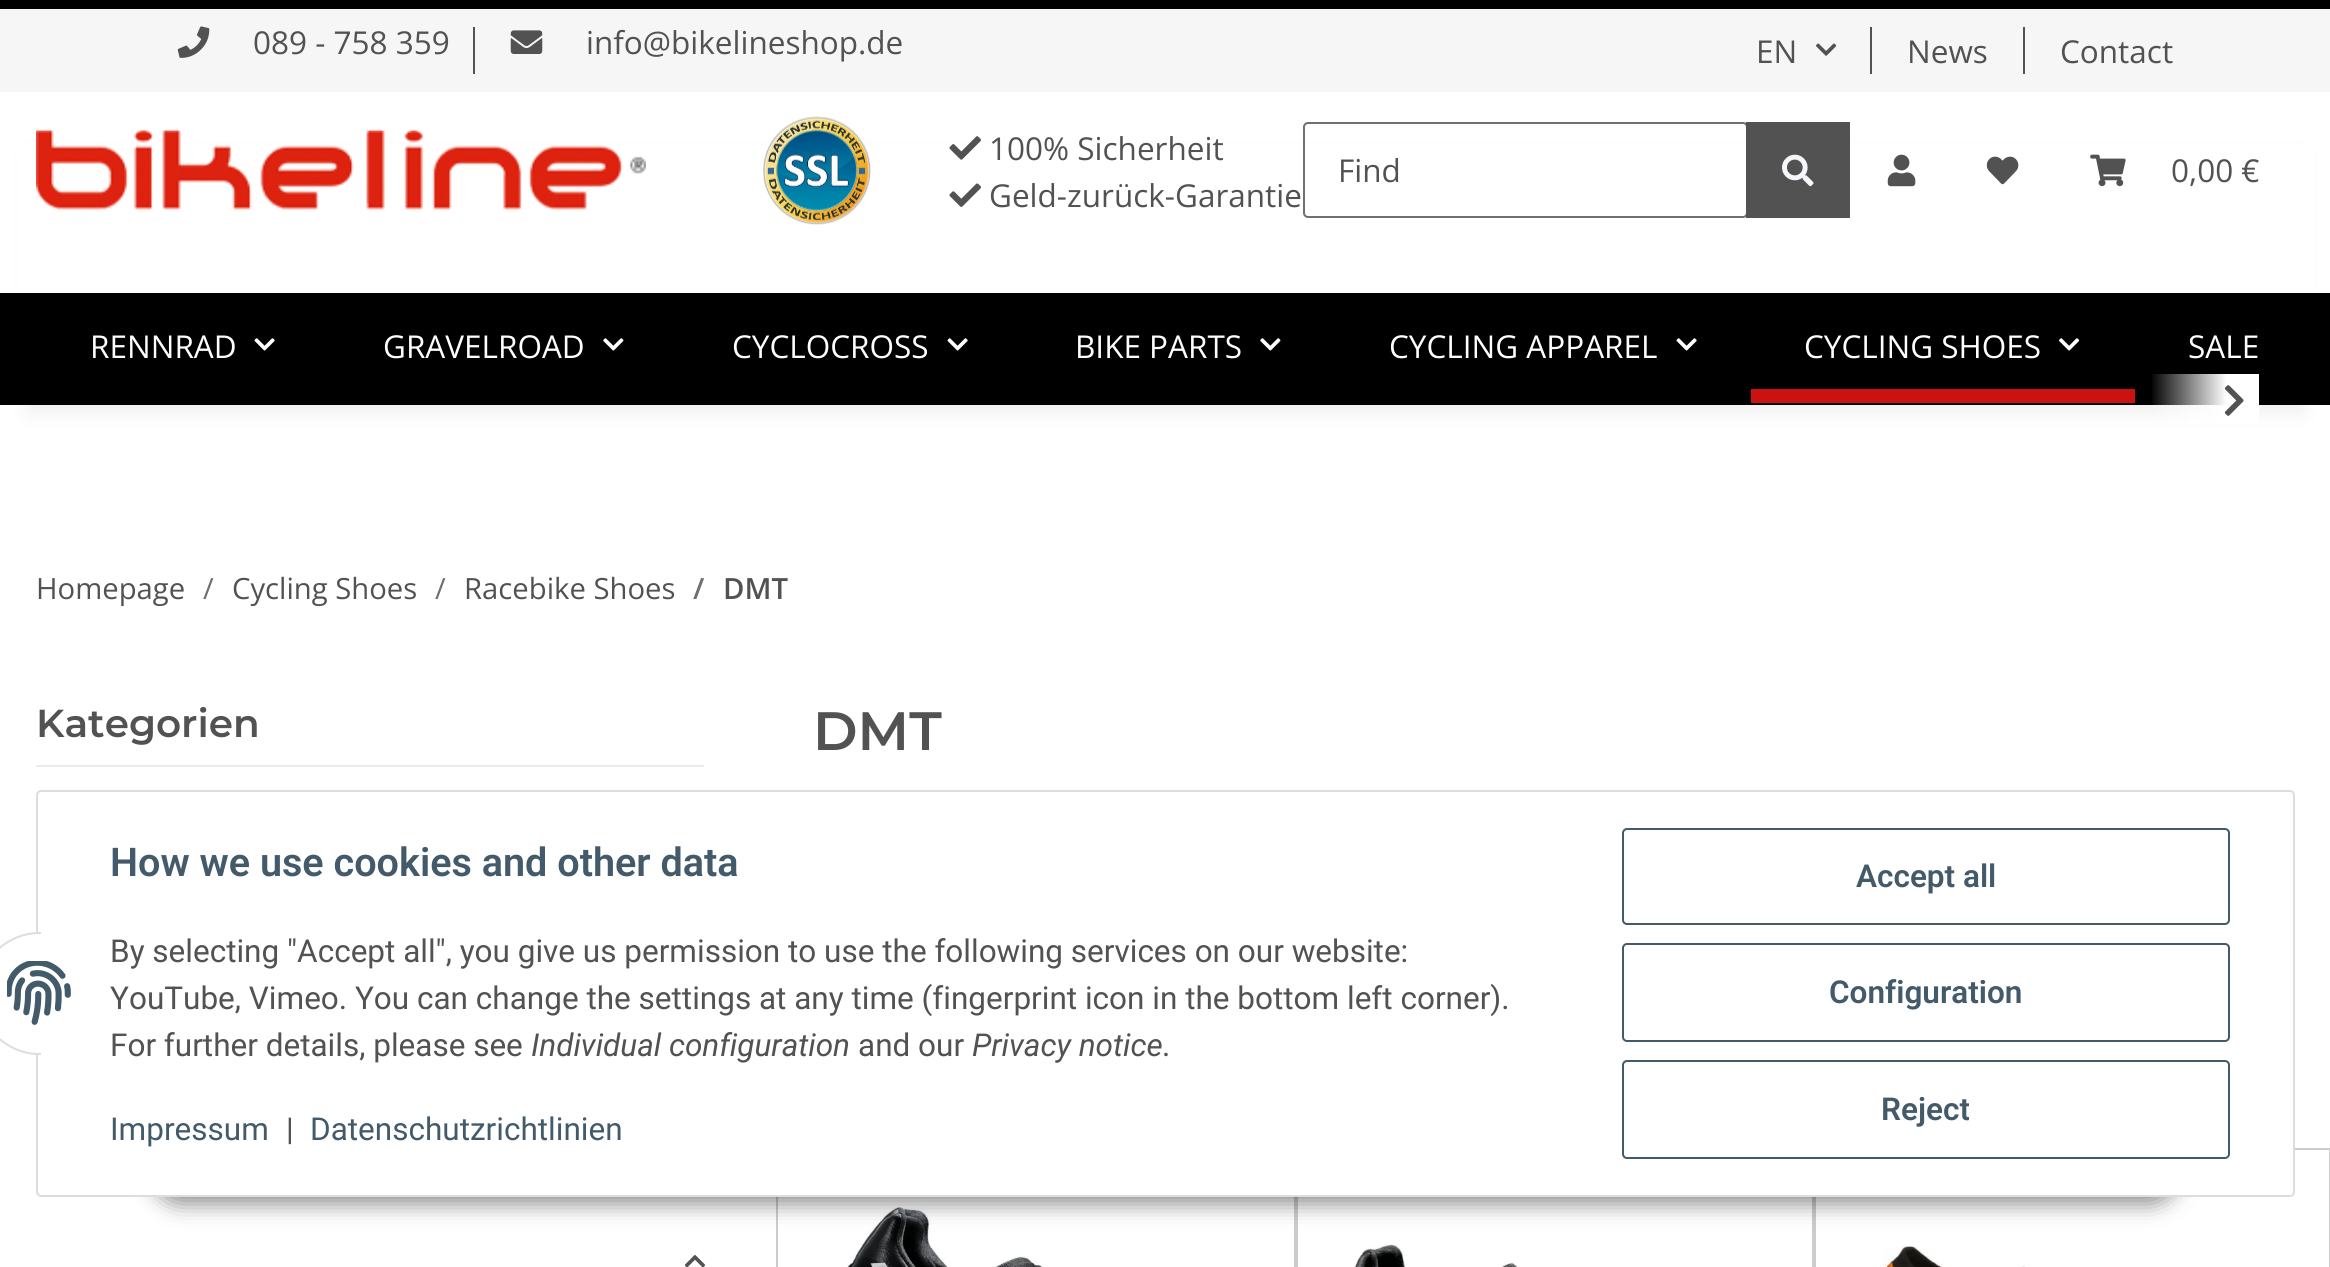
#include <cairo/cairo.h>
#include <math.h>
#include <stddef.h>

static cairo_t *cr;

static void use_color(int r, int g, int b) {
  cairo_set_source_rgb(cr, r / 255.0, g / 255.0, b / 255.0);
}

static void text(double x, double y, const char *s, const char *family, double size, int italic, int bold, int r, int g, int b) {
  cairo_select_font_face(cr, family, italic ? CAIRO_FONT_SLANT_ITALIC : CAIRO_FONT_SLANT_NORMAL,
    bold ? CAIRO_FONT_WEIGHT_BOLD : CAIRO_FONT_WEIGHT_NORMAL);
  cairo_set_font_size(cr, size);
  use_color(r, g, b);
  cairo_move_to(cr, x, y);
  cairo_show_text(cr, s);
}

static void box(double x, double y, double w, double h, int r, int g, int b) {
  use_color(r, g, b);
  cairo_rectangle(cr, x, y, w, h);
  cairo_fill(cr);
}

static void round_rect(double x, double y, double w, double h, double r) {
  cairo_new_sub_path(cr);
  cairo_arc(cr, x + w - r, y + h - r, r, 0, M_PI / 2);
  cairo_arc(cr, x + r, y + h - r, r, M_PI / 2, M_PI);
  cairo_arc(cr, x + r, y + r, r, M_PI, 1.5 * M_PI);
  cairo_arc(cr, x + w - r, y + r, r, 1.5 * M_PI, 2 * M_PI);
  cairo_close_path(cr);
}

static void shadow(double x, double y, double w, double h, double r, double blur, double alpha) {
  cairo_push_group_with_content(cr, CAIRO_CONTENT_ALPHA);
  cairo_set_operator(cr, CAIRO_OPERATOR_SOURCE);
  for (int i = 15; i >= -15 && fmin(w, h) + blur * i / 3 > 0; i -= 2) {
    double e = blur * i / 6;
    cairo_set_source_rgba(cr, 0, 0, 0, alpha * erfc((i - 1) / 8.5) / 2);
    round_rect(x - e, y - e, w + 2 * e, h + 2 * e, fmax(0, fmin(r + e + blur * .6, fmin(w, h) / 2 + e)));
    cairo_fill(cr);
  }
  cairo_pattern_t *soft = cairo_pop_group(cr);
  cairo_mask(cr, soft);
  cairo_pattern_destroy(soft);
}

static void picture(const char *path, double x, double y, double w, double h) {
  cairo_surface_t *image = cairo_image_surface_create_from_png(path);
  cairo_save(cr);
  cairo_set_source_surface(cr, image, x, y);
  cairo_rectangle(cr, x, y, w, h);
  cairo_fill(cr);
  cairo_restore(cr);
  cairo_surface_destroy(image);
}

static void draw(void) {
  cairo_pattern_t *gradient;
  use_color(255, 255, 255);
  cairo_paint(cr);
  box(0, 9, 2330, 83, 246, 246, 246);
  box(0, 0, 2330, 9, 0, 0, 0);
  picture("img_01.png", 177, 26, 33, 32);
  box(473, 27, 2, 47, 82, 82, 82);
  picture("img_02.png", 510, 30, 33, 24);
  picture("img_03.png", 1816, 43, 21, 13);
  box(1870, 27, 2, 47, 82, 82, 82);
  box(2023, 27, 2, 47, 82, 82, 82);
  use_color(0, 0, 0);
  shadow(27, 155, 2277, 259, 0, 10, 0.06);
  box(17, 145, 2297, 148, 255, 255, 255);
  picture("img_04.png", 36, 129, 610, 81);
  picture("img_05.png", 763, 116, 108, 109);
  picture("img_06.png", 949, 136, 32, 24);
  picture("img_07.png", 949, 183, 32, 24);
  round_rect(1304, 123, 443, 94, 4);
  use_color(112, 112, 112);
  cairo_stroke(cr);
  box(1746, 122, 104, 96, 82, 82, 82);
  picture("img_08.png", 1782, 154, 32, 33);
  picture("img_09.png", 1887, 154, 29, 33);
  picture("img_10.png", 1986, 156, 33, 29);
  picture("img_11.png", 2090, 154, 36, 33);
  box(0, 293, 2330, 112, 0, 0, 0);
  picture("img_12.png", 254, 338, 21, 13);
  picture("img_13.png", 603, 338, 21, 13);
  picture("img_12.png", 947, 338, 21, 13);
  picture("img_13.png", 1260, 338, 21, 13);
  picture("img_12.png", 1676, 338, 21, 13);
  picture("img_14.png", 2059, 338, 21, 13);
  box(1751, 389, 384, 14, 204, 17, 17);
  gradient = cairo_pattern_create_linear(2151, 401, 2259, 401);
  cairo_pattern_add_color_stop_rgba(gradient, 0, 1, 1, 1, 0.01);
  cairo_pattern_add_color_stop_rgba(gradient, 0.7, 1, 1, 1, 1);
  cairo_set_source(cr, gradient);
  cairo_pattern_destroy(gradient);
  cairo_rectangle(cr, 2152, 374, 107, 50);
  cairo_fill(cr);
  picture("img_15.png", 2224, 385, 20, 31);
  box(36, 765, 668, 2, 235, 235, 235);
  picture("img_16.png", 684, 1255, 21, 12);
  cairo_rectangle(cr, 777, 1149, 518, 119);
  use_color(204, 204, 204);
  cairo_stroke(cr);
  picture("img_17.png", 847, 1207, 195, 60);
  cairo_rectangle(cr, 1297, 1149, 516, 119);
  cairo_stroke(cr);
  picture("img_18.png", 1354, 1244, 165, 23);
  cairo_rectangle(cr, 1815, 1149, 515, 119);
  cairo_stroke(cr);
  picture("img_19.png", 1883, 1246, 143, 21);
  use_color(0, 0, 0);
  shadow(151, 1132, 2029, 72, 36, 11, 0.45);
  use_color(255, 255, 255);
  round_rect(37, 791, 2257, 405, 4);
  cairo_fill_preserve(cr);
  use_color(221, 221, 221);
  cairo_stroke(cr);
  use_color(255, 255, 255);
  cairo_arc(cr, 39.5, 993.5, 60.5, 0, 2 * M_PI);
  cairo_fill_preserve(cr);
  use_color(221, 221, 221);
  cairo_stroke(cr);
  box(41, 932, 60, 123, 255, 255, 255);
  picture("img_20.png", 7, 961, 64, 64);
  round_rect(1623, 829, 606, 95, 4);
  use_color(67, 90, 107);
  cairo_stroke(cr);
  round_rect(1623, 944, 606, 97, 4);
  cairo_stroke(cr);
  round_rect(1623, 1061, 606, 97, 4);
  cairo_stroke(cr);
  text(253, 54, "089 - 758 359", "Open Sans", 31.5, 0, 0, 82, 82, 82);
  text(586, 54, "info@bikelineshop.de", "Open Sans", 31.5, 0, 0, 82, 82, 82);
  text(1756, 63, "EN", "Open Sans", 31.5, 0, 0, 82, 82, 82);
  text(1907, 63, "News", "Open Sans", 31.5, 0, 0, 82, 82, 82);
  text(2060, 63, "Contact", "Open Sans", 31.5, 0, 0, 82, 82, 82);
  text(989, 160, "100% Sicherheit", "Open Sans", 31.5, 0, 0, 82, 82, 82);
  text(989, 207, "Geld-zurück-Garantie", "Open Sans", 31.5, 0, 0, 82, 82, 82);
  text(1338, 182, "Find", "Open Sans", 31.5, 0, 0, 82, 82, 82);
  text(2171, 182, "0,00 €", "Open Sans", 31.5, 0, 0, 82, 82, 82);
  text(90, 358, "RENNRAD", "Open Sans", 31.5, 0, 0, 255, 255, 255);
  text(383, 358, "GRAVELROAD", "Open Sans", 31.5, 0, 0, 255, 255, 255);
  text(732, 358, "CYCLOCROSS", "Open Sans", 31.5, 0, 0, 255, 255, 255);
  text(1075, 358, "BIKE PARTS", "Open Sans", 31.5, 0, 0, 255, 255, 255);
  text(1389, 358, "CYCLING APPAREL", "Open Sans", 31.5, 0, 0, 255, 255, 255);
  text(1804, 358, "CYCLING SHOES", "Open Sans", 31.5, 0, 0, 255, 255, 255);
  text(2188, 358, "SALE", "Open Sans", 31.5, 0, 0, 255, 255, 255);
  text(36, 599, "Homepage", "Open Sans", 29.25, 0, 0, 82, 82, 82);
  text(203, 599, "/", "Open Sans", 29.25, 0, 0, 112, 112, 112);
  text(232, 599, "Cycling Shoes", "Open Sans", 29.25, 0, 0, 82, 82, 82);
  text(435, 599, "/", "Open Sans", 29.25, 0, 0, 112, 112, 112);
  text(464, 599, "Racebike Shoes", "Open Sans", 29.25, 0, 0, 82, 82, 82);
  text(693, 599, "/", "Open Sans SemiBold", 29.25, 0, 0, 112, 112, 112);
  text(723, 599, "DMT", "Open Sans SemiBold", 29.25, 0, 0, 82, 82, 82);
  text(36, 737, "Kategorien", "Montserrat SemiBold", 39, 0, 0, 82, 82, 82);
  text(813, 750, "DMT", "Montserrat SemiBold", 54, 0, 0, 82, 82, 82);
  text(110, 876, "How we use cookies and other data", "Roboto SemiBold", 39.6, 0, 0, 67, 90, 107);
  text(110, 962, "By selecting \"Accept all\", you give us permission to use the following services on our website:", "Roboto", 31.5, 0, 0, 82, 82, 82);
  text(110, 1009, "YouTube, Vimeo. You can change the settings at any time (fingerprint icon in the bottom left corner).", "Roboto", 31.5, 0, 0, 82, 82, 82);
  text(110, 1056, "For further details, please see", "Roboto", 31.5, 0, 0, 82, 82, 82);
  text(531, 1056, "Individual configuration", "Roboto", 31.5, 1, 0, 82, 82, 82);
  text(858, 1056, "and our", "Roboto", 31.5, 0, 0, 82, 82, 82);
  text(972, 1056, "Privacy notice", "Roboto", 31.5, 1, 0, 82, 82, 82);
  text(1162, 1056, ".", "Roboto", 31.5, 0, 0, 82, 82, 82);
  text(110, 1140, "Impressum", "Roboto", 31.5, 0, 0, 67, 90, 107);
  text(286, 1140, "|", "Roboto", 31.5, 0, 0, 82, 82, 82);
  text(310, 1140, "Datenschutzrichtlinien", "Roboto", 31.5, 0, 0, 67, 90, 107);
  text(1856, 887, "Accept all", "Roboto SemiBold", 31.5, 0, 0, 67, 90, 107);
  text(1829, 1003, "Configuration", "Roboto SemiBold", 31.5, 0, 0, 67, 90, 107);
  text(1881, 1120, "Reject", "Roboto SemiBold", 31.5, 0, 0, 67, 90, 107);
}

int main(void) {
  cairo_surface_t *surface = cairo_image_surface_create(CAIRO_FORMAT_RGB24, 2330, 1267);
  cr = cairo_create(surface);
  cairo_font_options_t *options = cairo_font_options_create();
  cairo_font_options_set_hint_metrics(options, CAIRO_HINT_METRICS_OFF);
  cairo_font_options_set_hint_style(options, CAIRO_HINT_STYLE_NONE);
  cairo_set_font_options(cr, options);
  cairo_set_miter_limit(cr, 4);
  draw();
  cairo_surface_write_to_png(surface, "out.png");
  cairo_font_options_destroy(options);
  cairo_destroy(cr);
  cairo_surface_destroy(surface);
  return 0;
}
